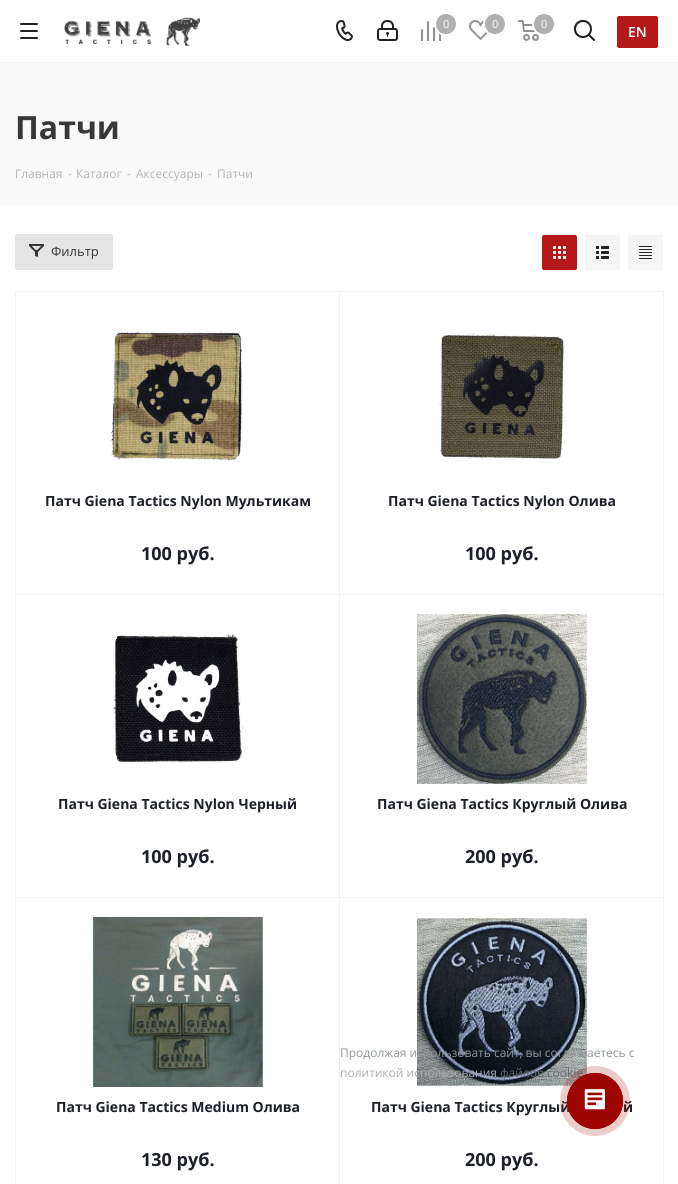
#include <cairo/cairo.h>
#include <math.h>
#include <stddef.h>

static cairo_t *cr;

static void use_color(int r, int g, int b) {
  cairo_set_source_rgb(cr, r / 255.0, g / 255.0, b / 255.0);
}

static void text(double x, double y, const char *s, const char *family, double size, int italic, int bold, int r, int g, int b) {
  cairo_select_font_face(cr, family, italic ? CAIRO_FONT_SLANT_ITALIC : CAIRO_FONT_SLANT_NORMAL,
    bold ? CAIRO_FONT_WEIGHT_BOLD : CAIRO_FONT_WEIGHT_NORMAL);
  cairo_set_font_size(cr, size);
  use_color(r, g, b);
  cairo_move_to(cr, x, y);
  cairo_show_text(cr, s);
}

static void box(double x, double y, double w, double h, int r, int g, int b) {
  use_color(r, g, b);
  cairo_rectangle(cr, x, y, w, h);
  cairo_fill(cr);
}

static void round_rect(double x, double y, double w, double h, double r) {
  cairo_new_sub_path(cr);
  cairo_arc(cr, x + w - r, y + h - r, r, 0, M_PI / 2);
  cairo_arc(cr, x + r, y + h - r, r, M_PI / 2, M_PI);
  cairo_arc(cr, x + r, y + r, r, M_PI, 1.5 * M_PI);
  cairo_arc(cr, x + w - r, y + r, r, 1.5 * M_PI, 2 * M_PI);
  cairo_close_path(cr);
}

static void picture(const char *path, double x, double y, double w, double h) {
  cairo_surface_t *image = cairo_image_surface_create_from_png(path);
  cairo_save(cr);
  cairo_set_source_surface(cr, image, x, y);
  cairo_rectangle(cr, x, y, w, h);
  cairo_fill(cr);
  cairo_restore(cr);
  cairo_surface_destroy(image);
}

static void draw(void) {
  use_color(255, 255, 255);
  cairo_paint(cr);
  box(0, 62, 678, 1, 245, 245, 245);
  picture("img_01.png", 20, 23, 18, 16);
  picture("img_02.png", 64, 17, 136, 29);
  picture("img_03.png", 336, 20, 17, 21);
  picture("img_04.png", 377, 20, 21, 21);
  picture("img_05.png", 421, 21, 20, 20);
  cairo_arc(cr, 446, 24, 11, 0, 2 * M_PI);
  use_color(255, 255, 255);
  cairo_stroke(cr);
  use_color(176, 176, 176);
  cairo_arc(cr, 446, 24, 10, 0, 2 * M_PI);
  cairo_fill(cr);
  picture("img_06.png", 469, 20, 20, 20);
  cairo_arc(cr, 495, 24, 11, 0, 2 * M_PI);
  use_color(255, 255, 255);
  cairo_stroke(cr);
  use_color(176, 176, 176);
  cairo_arc(cr, 495, 24, 10, 0, 2 * M_PI);
  cairo_fill(cr);
  picture("img_07.png", 518, 20, 21, 21);
  cairo_arc(cr, 544, 24, 11, 0, 2 * M_PI);
  use_color(255, 255, 255);
  cairo_stroke(cr);
  use_color(176, 176, 176);
  cairo_arc(cr, 544, 24, 10, 0, 2 * M_PI);
  cairo_fill(cr);
  picture("img_08.png", 574, 20, 21, 21);
  use_color(180, 24, 24);
  round_rect(617.5, 16.5, 40, 31, 1.5);
  cairo_fill_preserve(cr);
  cairo_set_line_width(cr, 1);
  cairo_stroke(cr);
  box(0, 63, 678, 142, 249, 249, 249);
  use_color(229, 229, 229);
  round_rect(15, 234, 98, 36, 2);
  cairo_fill(cr);
  picture("img_09.png", 29, 244, 15, 13);
  use_color(180, 24, 24);
  round_rect(542, 235, 35, 35, 2);
  cairo_fill(cr);
  picture("img_10.png", 553, 246, 13, 13);
  use_color(245, 245, 245);
  round_rect(585, 235, 35, 35, 2);
  cairo_fill(cr);
  picture("img_11.png", 596, 246, 13, 13);
  round_rect(628, 235, 35, 35, 2);
  cairo_fill(cr);
  picture("img_12.png", 639, 246, 13, 13);
  cairo_rectangle(cr, 15.5, 291.5, 324, 303);
  use_color(242, 242, 242);
  cairo_stroke(cr);
  picture("img_13.png", 110, 331, 132, 129);
  cairo_rectangle(cr, 339.5, 291.5, 324, 303);
  cairo_stroke(cr);
  picture("img_14.png", 439, 326, 125, 133);
  cairo_rectangle(cr, 15.5, 594.5, 324, 303);
  cairo_stroke(cr);
  picture("img_15.png", 112, 633, 132, 131);
  cairo_rectangle(cr, 339.5, 594.5, 324, 303);
  cairo_stroke(cr);
  picture("img_16.png", 417, 614, 170, 170);
  cairo_rectangle(cr, 15.5, 897.5, 324, 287);
  cairo_stroke(cr);
  picture("img_17.png", 93, 917, 170, 170);
  cairo_rectangle(cr, 339.5, 897.5, 324, 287);
  cairo_stroke(cr);
  picture("img_18.png", 417, 918, 170, 169);
  text(443, 28, "0", "Open Sans", 11, 0, 0, 255, 255, 255);
  text(492, 28, "0", "Open Sans", 11, 0, 0, 255, 255, 255);
  text(541, 28, "0", "Open Sans", 11, 0, 0, 255, 255, 255);
  text(628, 37, "EN", "Open Sans SemiBold", 14, 0, 0, 255, 255, 255);
  text(15, 139, "Патчи", "Open Sans", 32, 0, 1, 56, 56, 56);
  text(15, 178, "Главная", "Open Sans", 12, 0, 0, 182, 181, 181);
  text(68, 178, "-", "Open Sans", 12, 0, 0, 182, 181, 181);
  text(76, 178, "Каталог", "Open Sans", 12, 0, 0, 182, 181, 181);
  text(127, 178, "-", "Open Sans", 12, 0, 0, 182, 181, 181);
  text(136, 178, "Аксессуары", "Open Sans", 12, 0, 0, 182, 181, 181);
  text(208, 178, "-", "Open Sans", 12, 0, 0, 182, 181, 181);
  text(217, 178, "Патчи", "Open Sans", 12, 0, 0, 182, 181, 181);
  text(51, 256, "Фильтр", "Open Sans", 13, 0, 0, 56, 56, 56);
  text(45, 506, "Патч Giena Tactics Nylon Мультикам", "Open Sans", 14, 0, 1, 29, 32, 41);
  text(141, 560, "100 руб.", "Open Sans", 18, 0, 1, 29, 32, 41);
  text(388, 506, "Патч Giena Tactics Nylon Олива", "Open Sans", 14, 0, 1, 29, 32, 41);
  text(465, 560, "100 руб.", "Open Sans", 18, 0, 1, 29, 32, 41);
  text(58, 809, "Патч Giena Tactics Nylon Черный", "Open Sans", 14, 0, 1, 29, 32, 41);
  text(141, 863, "100 руб.", "Open Sans", 18, 0, 1, 29, 32, 41);
  text(377, 809, "Патч Giena Tactics Круглый Олива", "Open Sans", 14, 0, 1, 29, 32, 41);
  text(465, 863, "200 руб.", "Open Sans", 18, 0, 1, 29, 32, 41);
  text(56, 1112, "Патч Giena Tactics Medium Олива", "Open Sans", 14, 0, 1, 29, 32, 41);
  text(141, 1166, "130 руб.", "Open Sans", 18, 0, 1, 29, 32, 41);
  text(371, 1112, "Патч Giena Tactics Круглый", "Open Sans", 14, 0, 1, 29, 32, 41);
  text(623, 1112, "й", "Open Sans", 14, 0, 1, 29, 32, 41);
  text(465, 1166, "200 руб.", "Open Sans", 18, 0, 1, 29, 32, 41);
  text(340, 1057, "Продолжая использовать сайт, вы соглашаетесь с", "Open Sans", 12, 0, 0, 144, 150, 154);
  text(340, 1077, "политикой использования", "Open Sans", 12, 0, 0, 169, 173, 177);
  text(500, 1077, "файлов cookie", "Open Sans", 12, 0, 0, 97, 107, 113);
  cairo_set_source_rgba(cr, 0.62, 0.02, 0.008, 0.2);
  cairo_new_path(cr);
  cairo_arc(cr, 595, 1101, 35, 0, 2 * M_PI);
  cairo_fill(cr);
  cairo_arc(cr, 595, 1101, 27.6, 0, 2 * M_PI);
  use_color(158, 5, 2);
  cairo_set_line_width(cr, 0.8);
  cairo_stroke(cr);
  cairo_arc(cr, 595, 1101, 28, 0, 2 * M_PI);
  cairo_fill(cr);
  picture("img_19.png", 584, 1089, 21, 21);
}

int main(void) {
  cairo_surface_t *surface = cairo_image_surface_create(CAIRO_FORMAT_RGB24, 678, 1184);
  cr = cairo_create(surface);
  cairo_font_options_t *options = cairo_font_options_create();
  cairo_font_options_set_hint_metrics(options, CAIRO_HINT_METRICS_OFF);
  cairo_font_options_set_hint_style(options, CAIRO_HINT_STYLE_NONE);
  cairo_set_font_options(cr, options);
  cairo_set_miter_limit(cr, 4);
  draw();
  cairo_surface_write_to_png(surface, "out.png");
  cairo_font_options_destroy(options);
  cairo_destroy(cr);
  cairo_surface_destroy(surface);
  return 0;
}
